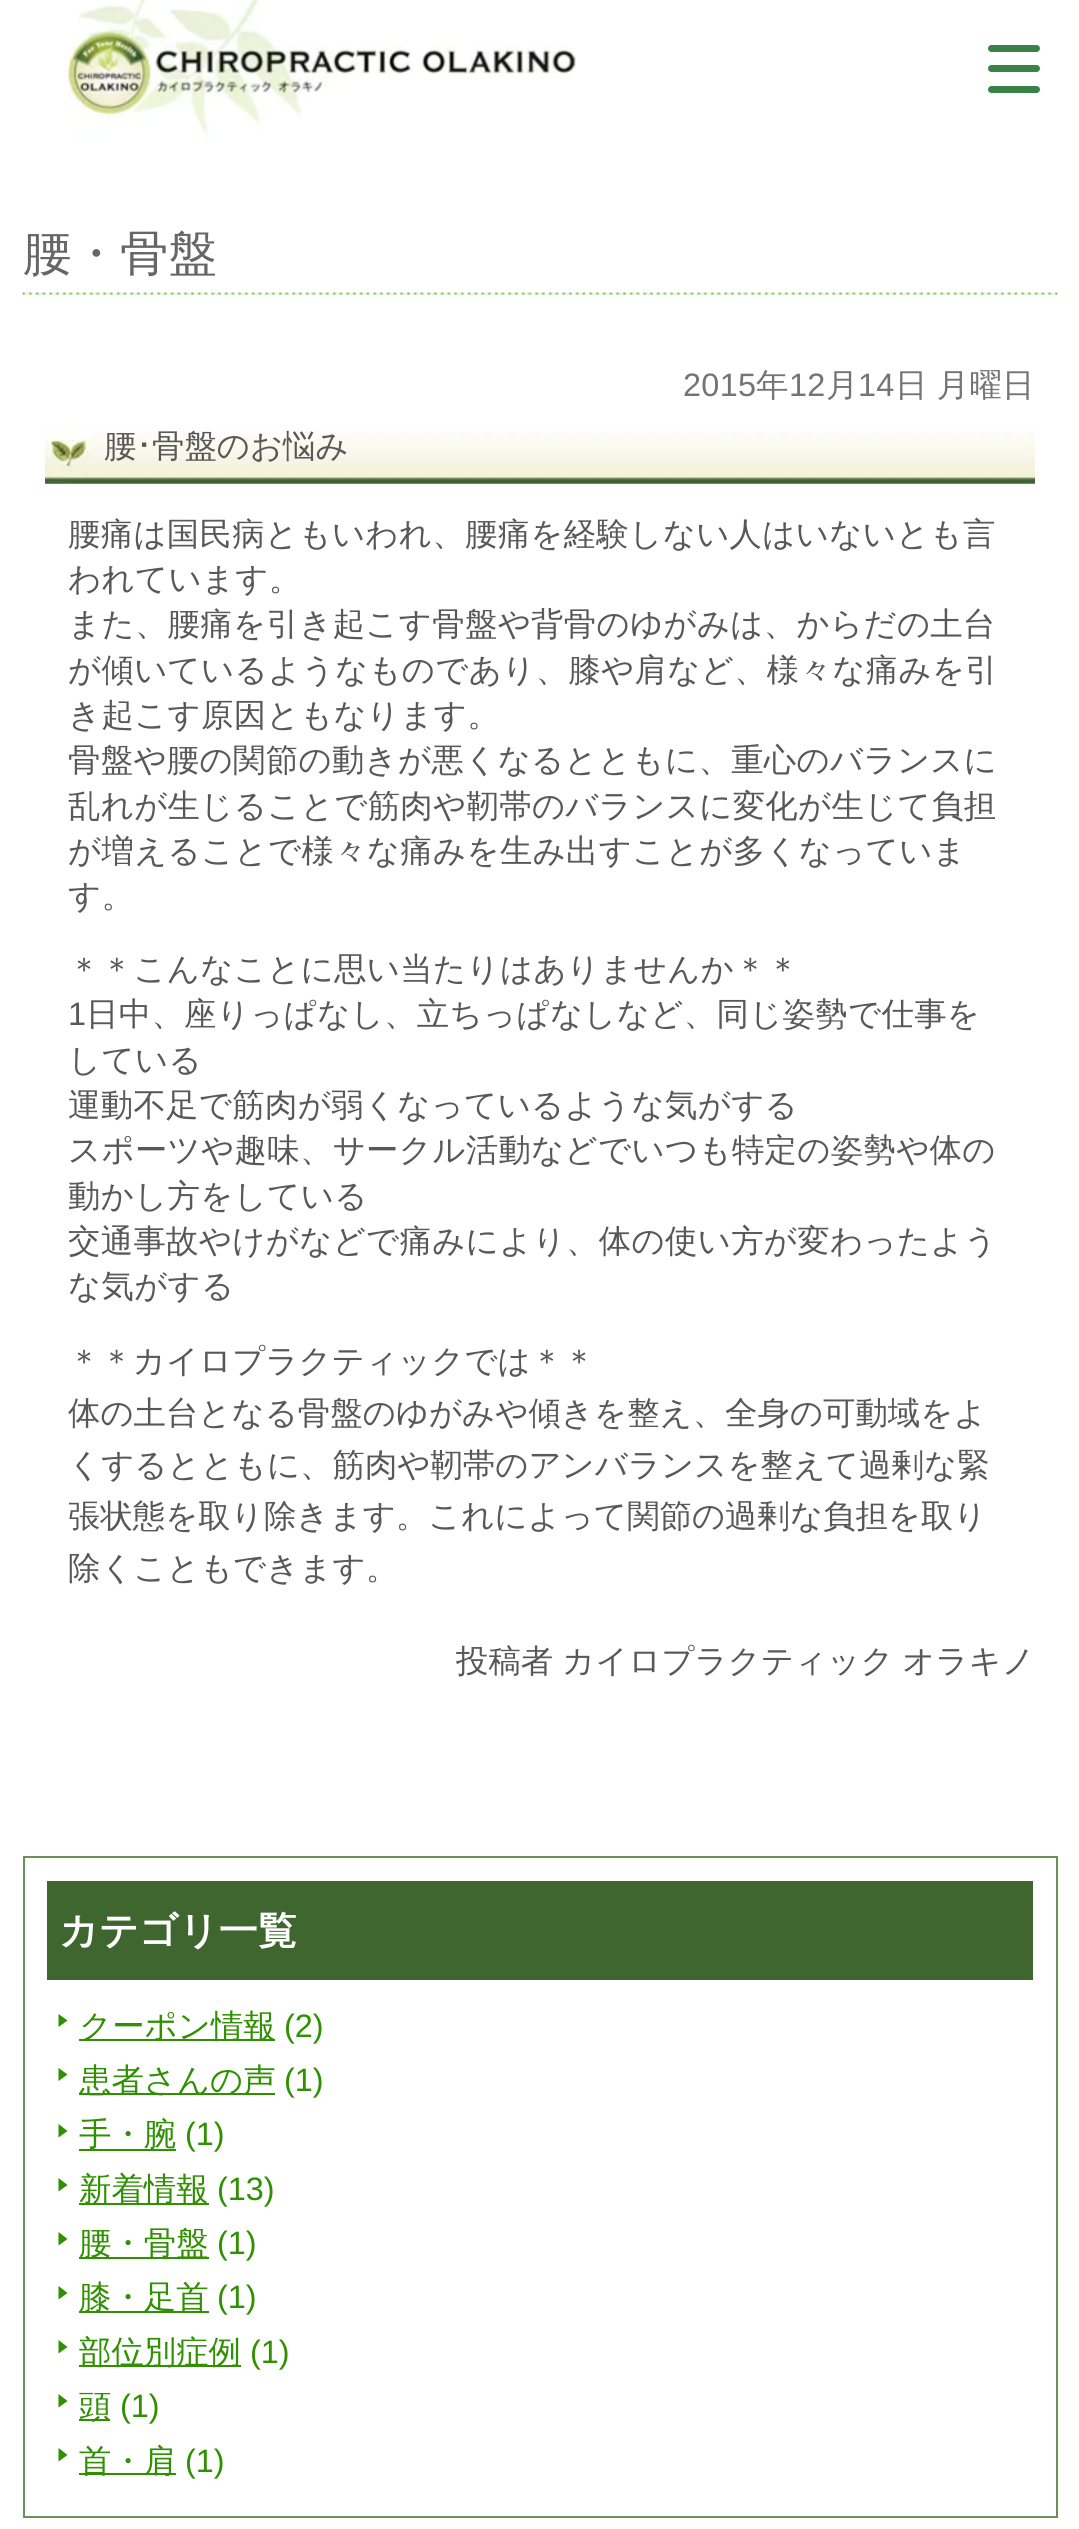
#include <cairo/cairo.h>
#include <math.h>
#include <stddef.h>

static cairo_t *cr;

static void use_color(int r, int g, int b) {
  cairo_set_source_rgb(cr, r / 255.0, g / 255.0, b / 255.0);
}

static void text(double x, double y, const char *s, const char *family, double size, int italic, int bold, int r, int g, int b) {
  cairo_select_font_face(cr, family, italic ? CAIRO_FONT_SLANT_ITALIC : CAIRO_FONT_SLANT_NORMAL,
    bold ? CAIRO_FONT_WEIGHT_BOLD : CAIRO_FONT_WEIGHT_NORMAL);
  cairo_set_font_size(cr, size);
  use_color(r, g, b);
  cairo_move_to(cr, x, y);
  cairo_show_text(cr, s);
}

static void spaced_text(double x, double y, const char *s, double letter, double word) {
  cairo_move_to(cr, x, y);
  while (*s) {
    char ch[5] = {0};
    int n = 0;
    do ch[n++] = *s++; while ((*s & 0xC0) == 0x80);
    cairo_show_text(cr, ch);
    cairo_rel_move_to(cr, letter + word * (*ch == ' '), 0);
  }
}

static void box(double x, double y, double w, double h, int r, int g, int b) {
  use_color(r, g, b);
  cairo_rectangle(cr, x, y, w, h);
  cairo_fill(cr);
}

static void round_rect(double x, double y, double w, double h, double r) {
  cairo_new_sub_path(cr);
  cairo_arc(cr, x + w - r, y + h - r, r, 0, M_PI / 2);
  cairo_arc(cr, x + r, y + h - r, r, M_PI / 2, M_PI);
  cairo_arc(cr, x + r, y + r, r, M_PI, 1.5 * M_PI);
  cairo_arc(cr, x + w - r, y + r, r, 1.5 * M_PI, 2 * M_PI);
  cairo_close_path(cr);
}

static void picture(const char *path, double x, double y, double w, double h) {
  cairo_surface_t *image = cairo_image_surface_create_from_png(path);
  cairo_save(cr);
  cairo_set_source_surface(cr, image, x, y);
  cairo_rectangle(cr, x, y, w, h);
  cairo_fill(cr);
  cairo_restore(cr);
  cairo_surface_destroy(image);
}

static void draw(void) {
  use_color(255, 255, 255);
  cairo_paint(cr);
  picture("img_01.png", 68, 0, 508, 140);
  use_color(57, 129, 70);
  round_rect(988, 45, 52, 7, 3.5);
  cairo_fill(cr);
  round_rect(988, 65, 52, 7, 3.5);
  cairo_fill(cr);
  round_rect(988, 86, 52, 7, 3.5);
  cairo_fill(cr);
  picture("img_02.png", 22, 292, 1036, 3);
  picture("img_03.png", 45, 427, 990, 57);
  cairo_rectangle(cr, 24, 1857, 1033, 660);
  use_color(106, 144, 90);
  cairo_stroke(cr);
  box(47, 1881, 986, 99, 63, 102, 47);
  use_color(47, 144, 1);
  cairo_new_path(cr);
  cairo_move_to(cr, 58.5, 2027);
  cairo_line_to(cr, 58.5, 2014);
  cairo_line_to(cr, 67.5, 2020.5);
  cairo_close_path(cr);
  cairo_fill(cr);
  box(79, 2039, 196, 2, 47, 144, 1);
  cairo_new_path(cr);
  cairo_move_to(cr, 58.5, 2081);
  cairo_line_to(cr, 58.5, 2068);
  cairo_line_to(cr, 67.5, 2074.5);
  cairo_close_path(cr);
  cairo_fill(cr);
  box(79, 2093, 196, 2, 47, 144, 1);
  cairo_new_path(cr);
  cairo_move_to(cr, 58.5, 2137.5);
  cairo_line_to(cr, 58.5, 2124);
  cairo_line_to(cr, 67.5, 2131);
  cairo_close_path(cr);
  cairo_fill(cr);
  box(79, 2149, 97, 2, 47, 144, 1);
  cairo_new_path(cr);
  cairo_move_to(cr, 58.5, 2191.5);
  cairo_line_to(cr, 58.5, 2178);
  cairo_line_to(cr, 67.5, 2185);
  cairo_close_path(cr);
  cairo_fill(cr);
  box(79, 2203, 130, 2, 47, 144, 1);
  cairo_new_path(cr);
  cairo_move_to(cr, 58.5, 2245.5);
  cairo_line_to(cr, 58.5, 2232);
  cairo_line_to(cr, 67.5, 2239);
  cairo_close_path(cr);
  cairo_fill(cr);
  box(79, 2257, 130, 2, 47, 144, 1);
  cairo_new_path(cr);
  cairo_move_to(cr, 58.5, 2299.5);
  cairo_line_to(cr, 58.5, 2286);
  cairo_line_to(cr, 67.5, 2293);
  cairo_close_path(cr);
  cairo_fill(cr);
  box(79, 2311, 130, 2, 47, 144, 1);
  cairo_new_path(cr);
  cairo_move_to(cr, 58.5, 2353.5);
  cairo_line_to(cr, 58.5, 2340);
  cairo_line_to(cr, 67.5, 2347);
  cairo_close_path(cr);
  cairo_fill(cr);
  box(79, 2365, 162, 2, 47, 144, 1);
  cairo_new_path(cr);
  cairo_move_to(cr, 58.5, 2407.5);
  cairo_line_to(cr, 58.5, 2394);
  cairo_line_to(cr, 67.5, 2401);
  cairo_close_path(cr);
  cairo_fill(cr);
  box(79, 2419, 31, 2, 47, 144, 1);
  cairo_new_path(cr);
  cairo_move_to(cr, 58.5, 2461.5);
  cairo_line_to(cr, 58.5, 2448);
  cairo_line_to(cr, 67.5, 2455);
  cairo_close_path(cr);
  cairo_fill(cr);
  box(79, 2473, 97, 2, 47, 144, 1);
  text(23, 270, "腰・骨盤", "WenQuanYi Zen Hei Medium", 48.5, 0, 0, 102, 102, 102);
  cairo_select_font_face(cr, "Liberation Sans", CAIRO_FONT_SLANT_NORMAL, CAIRO_FONT_WEIGHT_NORMAL);
  cairo_set_font_size(cr, 32.4);
  use_color(116, 116, 116);
  spaced_text(683, 396, "2015", 0.3, 0);
  cairo_select_font_face(cr, "WenQuanYi Zen Hei Medium", CAIRO_FONT_SLANT_NORMAL, CAIRO_FONT_WEIGHT_NORMAL);
  spaced_text(756, 396, "年", 0.3, 0);
  cairo_select_font_face(cr, "Liberation Sans", CAIRO_FONT_SLANT_NORMAL, CAIRO_FONT_WEIGHT_NORMAL);
  spaced_text(789, 396, "12", 0.3, 0);
  cairo_select_font_face(cr, "WenQuanYi Zen Hei Medium", CAIRO_FONT_SLANT_NORMAL, CAIRO_FONT_WEIGHT_NORMAL);
  spaced_text(826, 396, "月", 0.3, 0);
  cairo_select_font_face(cr, "Liberation Sans", CAIRO_FONT_SLANT_NORMAL, CAIRO_FONT_WEIGHT_NORMAL);
  spaced_text(858, 396, "14", 0.3, 0);
  cairo_select_font_face(cr, "WenQuanYi Zen Hei Medium", CAIRO_FONT_SLANT_NORMAL, CAIRO_FONT_WEIGHT_NORMAL);
  spaced_text(895, 396, "日 月曜日", 0.3, -1);
  text(104, 457, "腰", "WenQuanYi Zen Hei Medium", 32.4, 0, 0, 88, 88, 88);
  text(136, 457, "･", "IPAPGothic", 32.4, 0, 0, 88, 88, 88);
  text(152, 457, "骨盤のお悩み", "WenQuanYi Zen Hei Medium", 32.4, 0, 0, 88, 88, 88);
  spaced_text(68, 545, "腰痛は国民病ともいわれ、腰痛を経験しない人はいないとも言", 0.3, 0);
  spaced_text(68, 590, "われています。", 0.3, 0);
  spaced_text(68, 635, "また、腰痛を引き起こす骨盤や背骨のゆがみは、からだの土台", 0.3, 0);
  spaced_text(68, 681, "が傾いているようなものであり、膝や肩など、様々な痛みを引", 0.3, 0);
  spaced_text(68, 726, "き起こす原因ともなります。", 0.3, 0);
  spaced_text(68, 771, "骨盤や腰の関節の動きが悪くなるとともに、重心のバランスに", 0.3, 0);
  spaced_text(68, 817, "乱れが生じることで筋肉や靭帯のバランスに変化が生じて負担", 0.3, 0);
  spaced_text(68, 862, "が増えることで様々な痛みを生み出すことが多くなっていま", 0.3, 0);
  spaced_text(68, 907, "す。", 0.3, 0);
  spaced_text(68, 980, "＊＊こんなことに思い当たりはありませんか＊＊", 0.3, 0);
  cairo_select_font_face(cr, "Liberation Sans", CAIRO_FONT_SLANT_NORMAL, CAIRO_FONT_WEIGHT_NORMAL);
  spaced_text(68, 1025, "1", 0.3, 0);
  cairo_select_font_face(cr, "WenQuanYi Zen Hei Medium", CAIRO_FONT_SLANT_NORMAL, CAIRO_FONT_WEIGHT_NORMAL);
  spaced_text(86, 1025, "日中、座りっぱなし、立ちっぱなしなど、同じ姿勢で仕事を", 0.3, 0);
  spaced_text(68, 1071, "している", 0.3, 0);
  spaced_text(68, 1116, "運動不足で筋肉が弱くなっているような気がする", 0.3, 0);
  spaced_text(68, 1161, "スポーツや趣味、サークル活動などでいつも特定の姿勢や体の", 0.3, 0);
  spaced_text(68, 1207, "動かし方をしている", 0.3, 0);
  spaced_text(68, 1252, "交通事故やけがなどで痛みにより、体の使い方が変わったよう", 0.3, 0);
  spaced_text(68, 1297, "な気がする", 0.3, 0);
  text(68, 1372, "＊＊カイロプラクティックでは＊＊", "WenQuanYi Zen Hei Medium", 32.4, 0, 0, 88, 88, 88);
  text(68, 1424, "体の土台となる骨盤のゆがみや傾きを整え、全身の可動域をよ", "WenQuanYi Zen Hei Medium", 32.4, 0, 0, 88, 88, 88);
  text(68, 1476, "くするとともに、筋肉や靭帯のアンバランスを整えて過剰な緊", "WenQuanYi Zen Hei Medium", 32.4, 0, 0, 88, 88, 88);
  text(68, 1527, "張状態を取り除きます。これによって関節の過剰な負担を取り", "WenQuanYi Zen Hei Medium", 32.4, 0, 0, 88, 88, 88);
  text(68, 1579, "除くこともできます。", "WenQuanYi Zen Hei Medium", 32.4, 0, 0, 88, 88, 88);
  text(456, 1672, "投稿者", "WenQuanYi Zen Hei Medium", 32.4, 0, 0, 88, 88, 88);
  spaced_text(562, 1672, "カイロプラクティック オラキノ", 0, -1);
  text(59, 1944, "カテゴリ一覧", "WenQuanYi Zen Hei", 39, 0, 1, 255, 255, 255);
  text(79, 2037, "クーポン情報", "WenQuanYi Zen Hei Medium", 32.4, 0, 0, 47, 144, 1);
  text(284, 2037, "(2)", "Liberation Sans", 32.4, 0, 0, 47, 144, 1);
  text(79, 2091, "患者さんの声", "WenQuanYi Zen Hei Medium", 32.4, 0, 0, 47, 144, 1);
  text(284, 2091, "(1)", "Liberation Sans", 32.4, 0, 0, 47, 144, 1);
  text(79, 2145, "手・腕", "WenQuanYi Zen Hei Medium", 32.4, 0, 0, 47, 144, 1);
  text(185, 2145, "(1)", "Liberation Sans", 32.4, 0, 0, 47, 144, 1);
  text(79, 2200, "新着情報", "WenQuanYi Zen Hei Medium", 32.4, 0, 0, 47, 144, 1);
  text(217, 2200, "(13)", "Liberation Sans", 32.4, 0, 0, 47, 144, 1);
  text(79, 2254, "腰・骨盤", "WenQuanYi Zen Hei Medium", 32.4, 0, 0, 47, 144, 1);
  text(217, 2254, "(1)", "Liberation Sans", 32.4, 0, 0, 47, 144, 1);
  text(79, 2308, "膝・足首", "WenQuanYi Zen Hei Medium", 32.4, 0, 0, 47, 144, 1);
  text(217, 2308, "(1)", "Liberation Sans", 32.4, 0, 0, 47, 144, 1);
  text(79, 2363, "部位別症例", "WenQuanYi Zen Hei Medium", 32.4, 0, 0, 47, 144, 1);
  text(250, 2363, "(1)", "Liberation Sans", 32.4, 0, 0, 47, 144, 1);
  text(79, 2417, "頭", "WenQuanYi Zen Hei Medium", 32.4, 0, 0, 47, 144, 1);
  text(120, 2417, "(1)", "Liberation Sans", 32.4, 0, 0, 47, 144, 1);
  text(79, 2472, "首・肩", "WenQuanYi Zen Hei Medium", 32.4, 0, 0, 47, 144, 1);
  text(185, 2472, "(1)", "Liberation Sans", 32.4, 0, 0, 47, 144, 1);
}

int main(void) {
  cairo_surface_t *surface = cairo_image_surface_create(CAIRO_FORMAT_RGB24, 1079, 2529);
  cr = cairo_create(surface);
  cairo_font_options_t *options = cairo_font_options_create();
  cairo_font_options_set_hint_metrics(options, CAIRO_HINT_METRICS_OFF);
  cairo_font_options_set_hint_style(options, CAIRO_HINT_STYLE_NONE);
  cairo_set_font_options(cr, options);
  cairo_set_miter_limit(cr, 4);
  draw();
  cairo_surface_write_to_png(surface, "out.png");
  cairo_font_options_destroy(options);
  cairo_destroy(cr);
  cairo_surface_destroy(surface);
  return 0;
}
